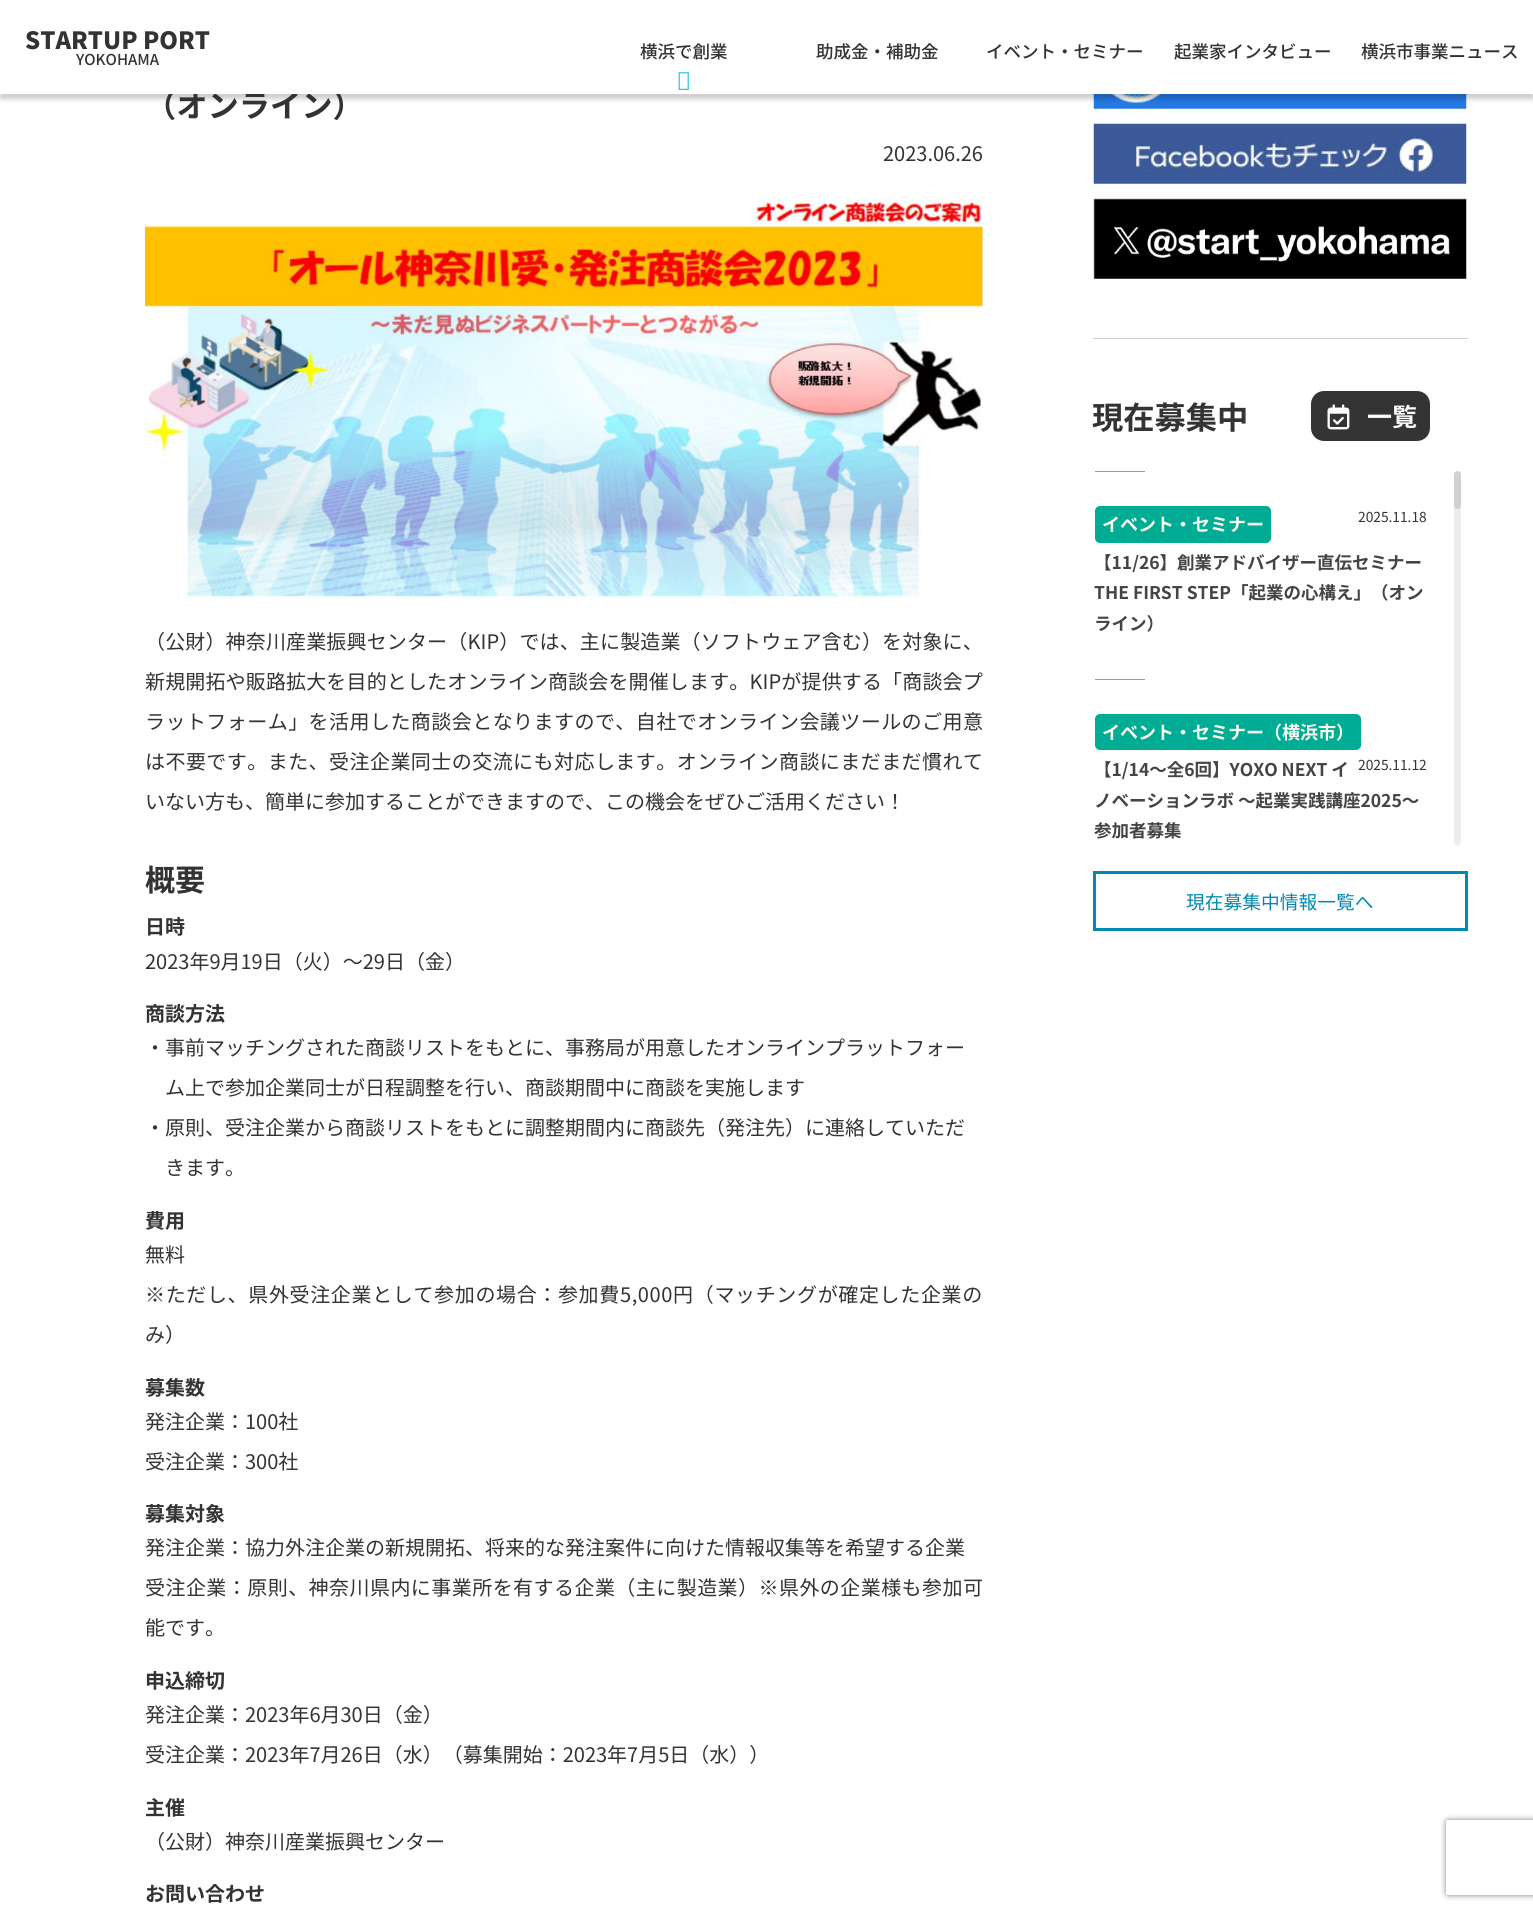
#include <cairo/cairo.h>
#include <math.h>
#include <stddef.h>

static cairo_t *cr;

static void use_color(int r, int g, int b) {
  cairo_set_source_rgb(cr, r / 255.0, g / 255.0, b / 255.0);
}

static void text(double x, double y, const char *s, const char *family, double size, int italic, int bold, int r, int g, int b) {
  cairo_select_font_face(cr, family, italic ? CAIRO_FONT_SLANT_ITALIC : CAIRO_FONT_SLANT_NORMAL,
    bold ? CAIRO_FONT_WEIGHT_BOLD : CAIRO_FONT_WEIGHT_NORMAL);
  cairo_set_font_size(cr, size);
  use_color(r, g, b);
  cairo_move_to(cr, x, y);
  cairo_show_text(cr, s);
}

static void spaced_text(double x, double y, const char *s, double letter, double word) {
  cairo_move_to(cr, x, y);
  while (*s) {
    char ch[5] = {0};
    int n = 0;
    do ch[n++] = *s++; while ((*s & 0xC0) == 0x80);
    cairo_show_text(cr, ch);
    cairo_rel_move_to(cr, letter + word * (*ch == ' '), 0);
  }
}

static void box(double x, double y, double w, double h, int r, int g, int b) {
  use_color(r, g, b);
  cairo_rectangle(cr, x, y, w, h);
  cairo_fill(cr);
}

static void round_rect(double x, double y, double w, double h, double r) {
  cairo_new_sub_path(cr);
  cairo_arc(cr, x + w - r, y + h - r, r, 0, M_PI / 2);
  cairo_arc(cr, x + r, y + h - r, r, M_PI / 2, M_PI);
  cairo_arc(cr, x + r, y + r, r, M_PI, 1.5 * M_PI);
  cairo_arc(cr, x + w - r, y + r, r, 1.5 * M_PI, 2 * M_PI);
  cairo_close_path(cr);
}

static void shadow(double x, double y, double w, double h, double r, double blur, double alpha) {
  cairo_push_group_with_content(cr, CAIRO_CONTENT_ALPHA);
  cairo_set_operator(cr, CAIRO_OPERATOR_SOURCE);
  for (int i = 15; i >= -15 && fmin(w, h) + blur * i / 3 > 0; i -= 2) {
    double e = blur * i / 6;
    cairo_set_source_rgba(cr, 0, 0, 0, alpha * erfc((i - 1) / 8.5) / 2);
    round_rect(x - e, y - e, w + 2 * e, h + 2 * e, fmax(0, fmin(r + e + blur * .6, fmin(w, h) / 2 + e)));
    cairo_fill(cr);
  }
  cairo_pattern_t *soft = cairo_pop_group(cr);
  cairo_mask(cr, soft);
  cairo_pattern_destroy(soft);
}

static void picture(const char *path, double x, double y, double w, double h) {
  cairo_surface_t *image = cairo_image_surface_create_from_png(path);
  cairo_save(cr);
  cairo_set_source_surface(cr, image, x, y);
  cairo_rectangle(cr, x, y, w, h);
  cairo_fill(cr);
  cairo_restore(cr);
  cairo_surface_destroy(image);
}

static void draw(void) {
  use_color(255, 255, 255);
  cairo_paint(cr);
  picture("img_03.png", 1093, 94, 374, 15);
  use_color(0, 0, 0);
  shadow(0, 5, 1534, 94, 0, 2.5, 0.2);
  picture("img_02.png", 145, 197, 838, 402);
  picture("img_04.png", 1093, 123, 374, 61);
  picture("img_05.png", 1093, 198, 374, 81);
  box(1093, 338, 375, 1, 208, 208, 208);
  use_color(51, 51, 51);
  round_rect(1311, 391, 119, 50, 13);
  cairo_fill(cr);
  picture("img_06.png", 1327, 404, 23, 26);
  box(1095, 471, 50, 1, 153, 153, 153);
  use_color(0, 172, 147);
  round_rect(1095, 506, 176, 37, 5);
  cairo_fill(cr);
  box(1095, 679, 50, 1, 153, 153, 153);
  use_color(0, 172, 147);
  round_rect(1095, 714, 266, 36, 5);
  cairo_fill(cr);
  use_color(237, 237, 237);
  round_rect(1454, 471, 7, 375, 3.5);
  cairo_fill(cr);
  use_color(209, 209, 209);
  round_rect(1454, 471, 7, 38, 3.5);
  cairo_fill(cr);
  cairo_rectangle(cr, 1094.5, 872.5, 372, 57);
  use_color(1, 138, 175);
  cairo_set_line_width(cr, 3);
  cairo_stroke(cr);
  cairo_save(cr);
  cairo_set_fill_rule(cr, CAIRO_FILL_RULE_EVEN_ODD);
  cairo_new_path(cr);
  cairo_move_to(cr, 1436, 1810);
  cairo_line_to(cr, 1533, 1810);
  cairo_line_to(cr, 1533, 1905);
  cairo_line_to(cr, 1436, 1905);
  cairo_close_path(cr);
  cairo_move_to(cr, 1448.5, 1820);
  cairo_line_to(cr, 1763.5, 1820);
  cairo_curve_to(cr, 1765, 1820, 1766, 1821, 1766, 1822.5);
  cairo_line_to(cr, 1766, 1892.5);
  cairo_curve_to(cr, 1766, 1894, 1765, 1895, 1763.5, 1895);
  cairo_line_to(cr, 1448.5, 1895);
  cairo_curve_to(cr, 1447, 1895, 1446, 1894, 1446, 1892.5);
  cairo_line_to(cr, 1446, 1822.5);
  cairo_curve_to(cr, 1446, 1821, 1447, 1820, 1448.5, 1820);
  cairo_close_path(cr);
  cairo_clip(cr);
  use_color(128, 128, 128);
  shadow(1446, 1820, 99, 75, 2.5, 3, 1);
  cairo_restore(cr);
  text(145, 117, "（オンライン）", "Noto Sans JP", 31.25, 0, 1, 51, 51, 51);
  box(0, 1, 1533, 93, 255, 255, 255);
  text(76, 65, "YOKOHAMA", "Noto Sans JP Medium", 15, 0, 0, 51, 51, 51);
  text(25, 49, "STARTUP PORT", "Noto Sans JP Black", 23.75, 0, 0, 51, 51, 51);
  text(1361, 58, "横浜市事業ニュース", "Noto Sans JP Medium", 17.5, 0, 0, 51, 51, 51);
  text(1174, 58, "起業家インタビュー", "Noto Sans JP Medium", 17.5, 0, 0, 51, 51, 51);
  text(986, 58, "イベント・セミナー", "Noto Sans JP Medium", 17.5, 0, 0, 51, 51, 51);
  text(816, 58, "助成金・補助金", "Noto Sans JP Medium", 17.5, 0, 0, 51, 51, 51);
  picture("img_01.png", 678, 72, 11, 18);
  text(640, 58, "横浜で創業", "Noto Sans JP Medium", 17.5, 0, 0, 51, 51, 51);
  text(883, 161, "2023.06.26", "Noto Sans JP", 20, 0, 0, 51, 51, 51);
  spaced_text(145, 649, "（公財）神奈川産業振興センター（KIP）では、主に製造業（ソフトウェア含む）を対象に、", 0.15, 0);
  spaced_text(145, 689, "新規開拓や販路拡大を目的としたオンライン商談会を開催します。KIPが提供する「商談会プ", 0.15, 0);
  spaced_text(145, 729, "ラットフォーム」を活用した商談会となりますので、自社でオンライン会議ツールのご用意", 0.45, 0);
  spaced_text(145, 769, "は不要です。また、受注企業同士の交流にも対応します。オンライン商談にまだまだ慣れて", 0.45, 0);
  text(145, 809, "いない方も、簡単に参加することができますので、この機会をぜひご活用ください！", "Noto Sans JP", 20, 0, 0, 51, 51, 51);
  text(145, 891, "概要", "Noto Sans JP", 30, 0, 1, 51, 51, 51);
  text(145, 934, "日時", "Noto Sans JP", 20, 0, 1, 51, 51, 51);
  text(145, 969, "2023年9月19日（火）～29日（金）", "Noto Sans JP", 20, 0, 0, 51, 51, 51);
  text(145, 1021, "商談方法", "Noto Sans JP", 20, 0, 1, 51, 51, 51);
  text(145, 1055, "・事前マッチングされた商談リストをもとに、事務局が用意したオンラインプラットフォー", "Noto Sans JP", 20, 0, 0, 51, 51, 51);
  text(165, 1095, "ム上で参加企業同士が日程調整を行い、商談期間中に商談を実施します", "Noto Sans JP", 20, 0, 0, 51, 51, 51);
  text(145, 1135, "・原則、受注企業から商談リストをもとに調整期間内に商談先（発注先）に連絡していただ", "Noto Sans JP", 20, 0, 0, 51, 51, 51);
  text(165, 1175, "きます。", "Noto Sans JP", 20, 0, 0, 51, 51, 51);
  text(145, 1228, "費用", "Noto Sans JP", 20, 0, 1, 51, 51, 51);
  text(145, 1262, "無料", "Noto Sans JP", 20, 0, 0, 51, 51, 51);
  spaced_text(145, 1302, "※ただし、県外受注企業として参加の場合：参加費5,000円（マッチングが確定した企業の", 0.65, 0);
  text(145, 1342, "み）", "Noto Sans JP", 20, 0, 0, 51, 51, 51);
  text(145, 1395, "募集数", "Noto Sans JP", 20, 0, 1, 51, 51, 51);
  text(145, 1429, "発注企業：100社", "Noto Sans JP", 20, 0, 0, 51, 51, 51);
  text(145, 1469, "受注企業：300社", "Noto Sans JP", 20, 0, 0, 51, 51, 51);
  text(145, 1521, "募集対象", "Noto Sans JP", 20, 0, 1, 51, 51, 51);
  text(145, 1555, "発注企業：協力外注企業の新規開拓、将来的な発注案件に向けた情報収集等を希望する企業", "Noto Sans JP", 20, 0, 0, 51, 51, 51);
  spaced_text(145, 1595, "受注企業：原則、神奈川県内に事業所を有する企業（主に製造業）※県外の企業様も参加可", 0.45, 0);
  text(145, 1635, "能です。", "Noto Sans JP", 20, 0, 0, 51, 51, 51);
  text(145, 1688, "申込締切", "Noto Sans JP", 20, 0, 1, 51, 51, 51);
  text(145, 1722, "発注企業：2023年6月30日（金）", "Noto Sans JP", 20, 0, 0, 51, 51, 51);
  text(145, 1762, "受注企業：2023年7月26日（水）（募集開始：2023年7月5日（水））", "Noto Sans JP", 20, 0, 0, 51, 51, 51);
  text(145, 1815, "主催", "Noto Sans JP", 20, 0, 1, 51, 51, 51);
  text(145, 1849, "（公財）神奈川産業振興センター", "Noto Sans JP", 20, 0, 0, 51, 51, 51);
  text(145, 1901, "お問い合わせ", "Noto Sans JP", 20, 0, 1, 51, 51, 51);
  text(1092, 429, "現在募集中", "Noto Sans JP", 31.25, 0, 1, 51, 51, 51);
  text(1367, 426, "一覧", "Noto Sans JP", 25, 0, 1, 251, 251, 251);
  text(1102, 531, "イベント・セミナー", "Noto Sans JP", 18, 0, 1, 253, 251, 240);
  text(1358, 522, "2025.11.18", "Noto Sans JP", 13.75, 0, 0, 51, 51, 51);
  text(1094, 569, "【11/26】創業アドバイザー直伝セミナー", "Noto Sans JP", 17.5, 0, 1, 68, 68, 68);
  text(1094, 599, "THE FIRST STEP「起業の心構え」（オン", "Noto Sans JP", 17.5, 0, 1, 68, 68, 68);
  text(1094, 630, "ライン）", "Noto Sans JP", 17.5, 0, 1, 68, 68, 68);
  text(1102, 739, "イベント・セミナー（横浜市）", "Noto Sans JP", 18, 0, 1, 253, 251, 240);
  text(1358, 770, "2025.11.12", "Noto Sans JP", 13.75, 0, 0, 51, 51, 51);
  text(1094, 776, "【1/14～全6回】YOXO NEXT イ", "Noto Sans JP", 17.5, 0, 1, 68, 68, 68);
  text(1094, 807, "ノベーションラボ ～起業実践講座2025～", "Noto Sans JP", 17.5, 0, 1, 68, 68, 68);
  text(1094, 837, "参加者募集", "Noto Sans JP", 17.5, 0, 1, 68, 68, 68);
  text(1186, 909, "現在募集中情報一覧へ", "Noto Sans JP", 18.75, 0, 0, 1, 138, 175);
}

int main(void) {
  cairo_surface_t *surface = cairo_image_surface_create(CAIRO_FORMAT_RGB24, 1533, 1912);
  cr = cairo_create(surface);
  cairo_font_options_t *options = cairo_font_options_create();
  cairo_font_options_set_hint_metrics(options, CAIRO_HINT_METRICS_OFF);
  cairo_font_options_set_hint_style(options, CAIRO_HINT_STYLE_NONE);
  cairo_set_font_options(cr, options);
  cairo_set_miter_limit(cr, 4);
  draw();
  cairo_surface_write_to_png(surface, "out.png");
  cairo_font_options_destroy(options);
  cairo_destroy(cr);
  cairo_surface_destroy(surface);
  return 0;
}
